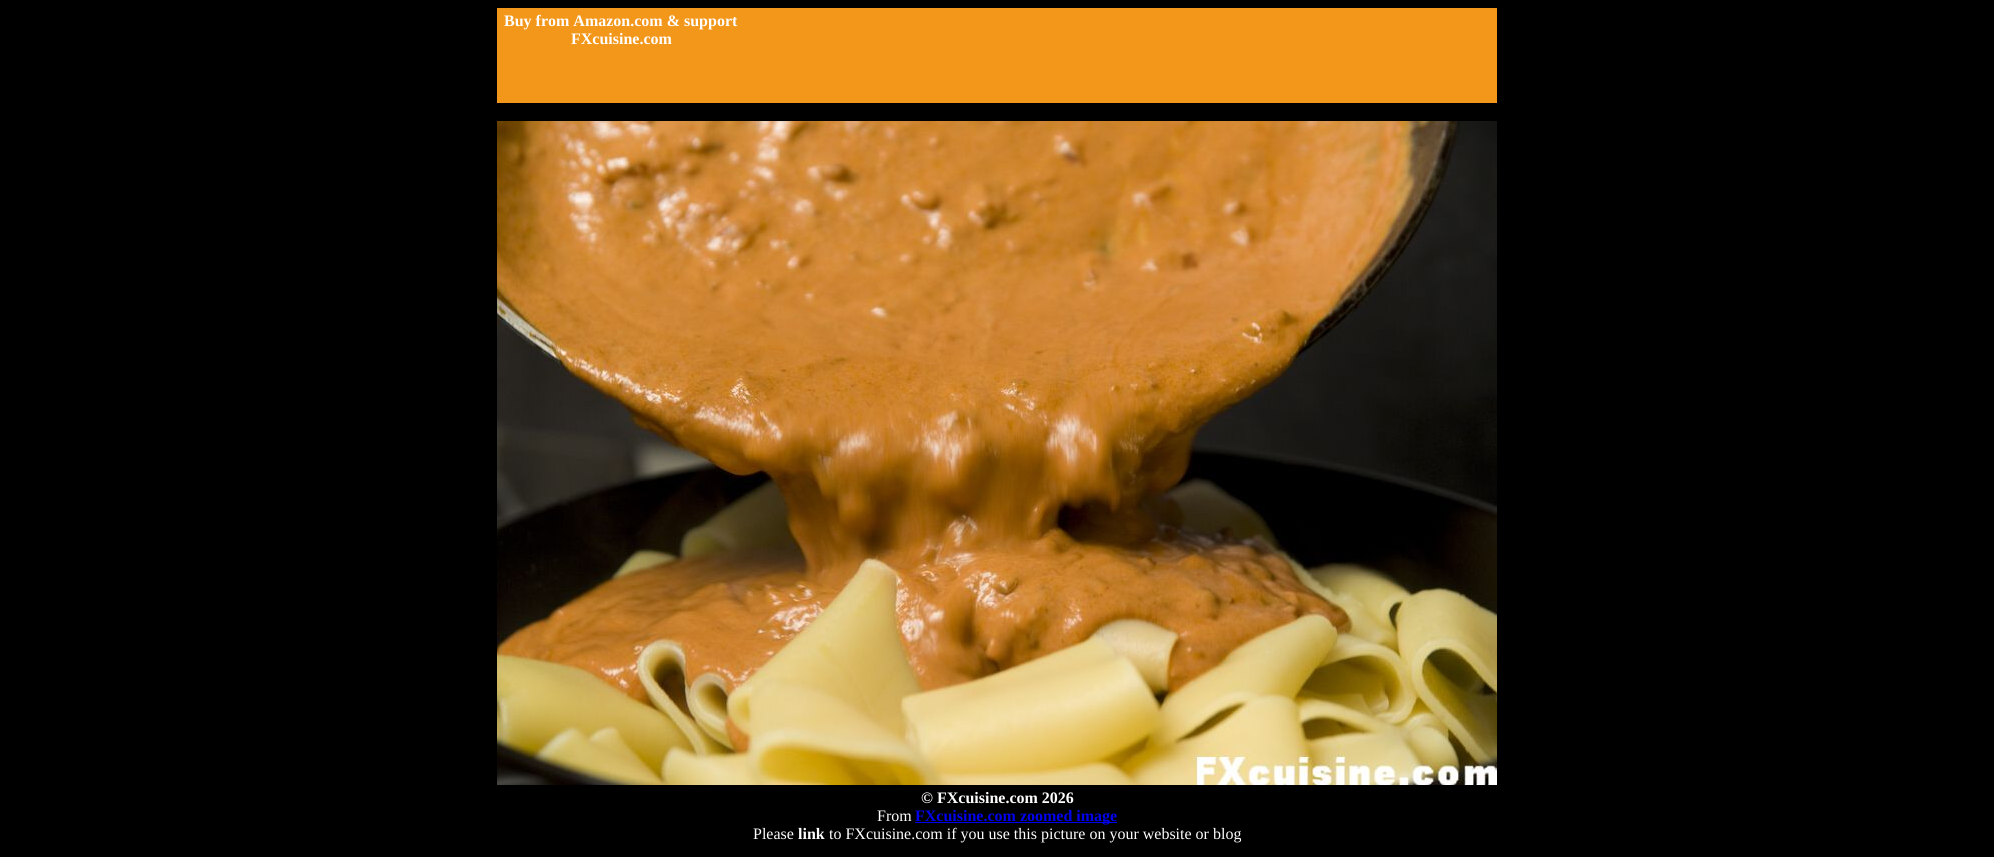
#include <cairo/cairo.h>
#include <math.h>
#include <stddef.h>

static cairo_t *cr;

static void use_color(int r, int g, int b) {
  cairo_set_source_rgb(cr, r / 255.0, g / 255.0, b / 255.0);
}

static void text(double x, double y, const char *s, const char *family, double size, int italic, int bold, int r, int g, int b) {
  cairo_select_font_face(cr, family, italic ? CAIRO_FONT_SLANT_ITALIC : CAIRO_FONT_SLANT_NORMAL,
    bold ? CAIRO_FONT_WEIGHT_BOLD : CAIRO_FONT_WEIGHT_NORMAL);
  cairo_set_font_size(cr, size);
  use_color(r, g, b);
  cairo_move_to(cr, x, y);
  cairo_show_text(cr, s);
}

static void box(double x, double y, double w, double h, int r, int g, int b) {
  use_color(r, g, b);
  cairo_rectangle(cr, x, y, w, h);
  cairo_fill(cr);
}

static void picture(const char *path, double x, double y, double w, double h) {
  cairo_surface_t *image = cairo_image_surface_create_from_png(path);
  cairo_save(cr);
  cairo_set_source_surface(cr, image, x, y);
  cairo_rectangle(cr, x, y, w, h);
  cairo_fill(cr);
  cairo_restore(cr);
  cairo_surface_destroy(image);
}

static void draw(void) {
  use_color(0, 0, 0);
  cairo_paint(cr);
  box(497, 8, 1000, 95, 243, 151, 26);
  picture("img_01.png", 497, 121, 1000, 664);
  box(915, 822, 202, 1, 0, 0, 238);
  text(504, 26, "Buy from Amazon.com & support", "Liberation Serif", 16, 0, 1, 255, 255, 255);
  text(571, 44, "FXcuisine.com", "Liberation Serif", 16, 0, 1, 255, 255, 255);
  text(921, 803, "© FXcuisine.com 2026", "Liberation Serif", 16, 0, 1, 255, 255, 255);
  text(877, 821, "From", "Liberation Serif", 16, 0, 0, 255, 255, 255);
  text(915, 821, "FXcuisine.com zoomed image", "Liberation Serif", 16, 0, 1, 0, 0, 238);
  text(753, 839, "Please", "Liberation Serif", 16, 0, 0, 255, 255, 255);
  text(798, 839, "link", "Liberation Serif", 16, 0, 1, 255, 255, 255);
  text(829, 839, "to FXcuisine.com if you use this picture on your website or blog", "Liberation Serif", 16, 0, 0, 255, 255, 255);
}

int main(void) {
  cairo_surface_t *surface = cairo_image_surface_create(CAIRO_FORMAT_RGB24, 1994, 857);
  cr = cairo_create(surface);
  cairo_font_options_t *options = cairo_font_options_create();
  cairo_font_options_set_hint_metrics(options, CAIRO_HINT_METRICS_OFF);
  cairo_font_options_set_hint_style(options, CAIRO_HINT_STYLE_NONE);
  cairo_set_font_options(cr, options);
  cairo_set_miter_limit(cr, 4);
  draw();
  cairo_surface_write_to_png(surface, "out.png");
  cairo_font_options_destroy(options);
  cairo_destroy(cr);
  cairo_surface_destroy(surface);
  return 0;
}
